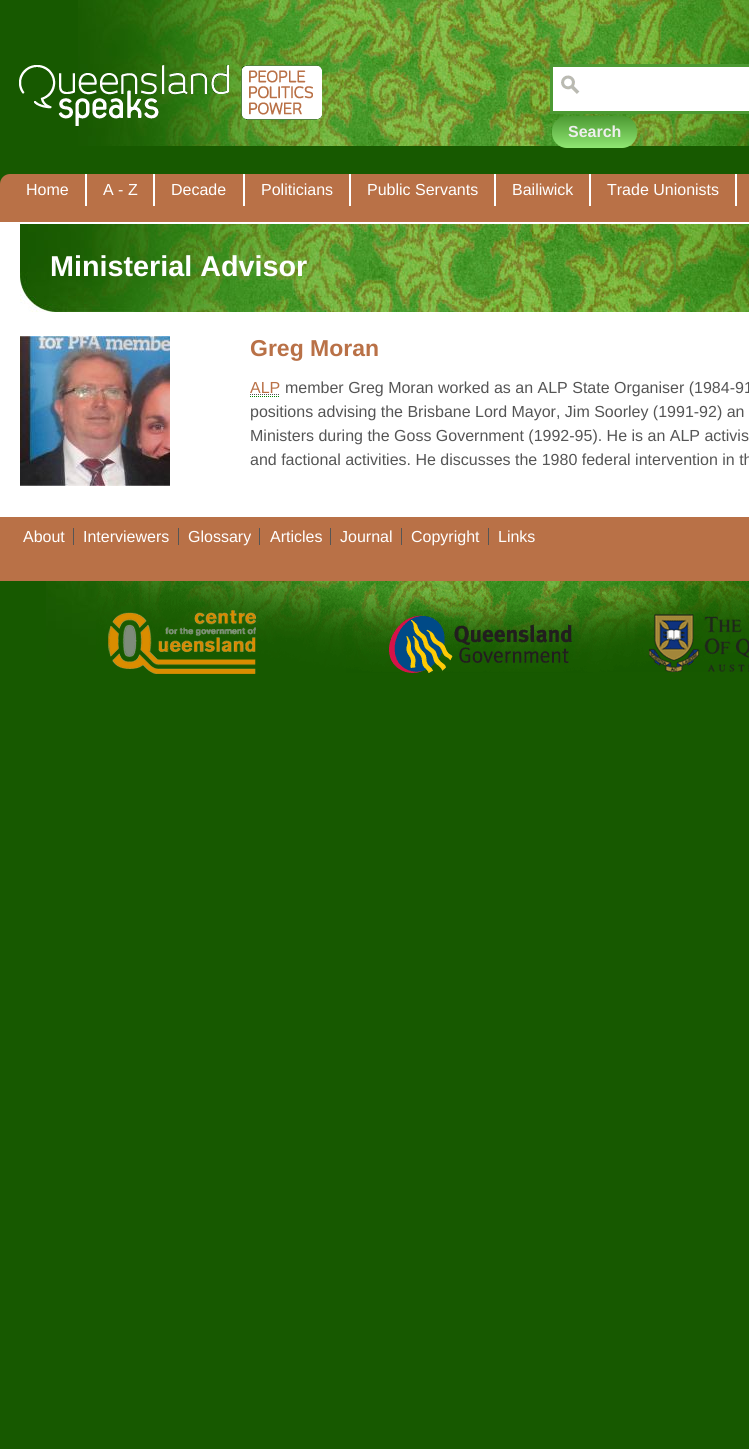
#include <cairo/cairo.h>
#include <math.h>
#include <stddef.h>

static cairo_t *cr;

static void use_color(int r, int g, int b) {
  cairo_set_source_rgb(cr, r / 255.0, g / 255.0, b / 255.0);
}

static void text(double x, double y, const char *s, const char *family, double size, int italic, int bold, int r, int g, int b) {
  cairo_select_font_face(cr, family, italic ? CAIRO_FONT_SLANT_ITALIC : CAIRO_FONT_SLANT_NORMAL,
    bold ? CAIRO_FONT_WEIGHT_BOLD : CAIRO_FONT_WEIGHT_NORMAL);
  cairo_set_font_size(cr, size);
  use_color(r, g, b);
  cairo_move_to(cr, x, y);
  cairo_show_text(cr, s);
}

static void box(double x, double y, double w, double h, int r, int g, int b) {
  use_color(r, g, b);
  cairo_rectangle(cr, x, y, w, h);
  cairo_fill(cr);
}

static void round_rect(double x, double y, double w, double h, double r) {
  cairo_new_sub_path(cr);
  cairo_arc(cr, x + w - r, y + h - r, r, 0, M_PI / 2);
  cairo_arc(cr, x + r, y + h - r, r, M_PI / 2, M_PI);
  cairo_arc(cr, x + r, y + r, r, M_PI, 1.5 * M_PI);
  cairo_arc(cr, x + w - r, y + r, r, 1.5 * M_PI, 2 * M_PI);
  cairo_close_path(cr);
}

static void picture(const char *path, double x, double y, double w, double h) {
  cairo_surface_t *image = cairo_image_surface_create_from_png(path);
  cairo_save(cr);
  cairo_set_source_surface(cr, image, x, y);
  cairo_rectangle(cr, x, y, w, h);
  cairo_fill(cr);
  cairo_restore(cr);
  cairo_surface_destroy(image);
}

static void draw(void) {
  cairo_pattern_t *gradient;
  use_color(23, 89, 0);
  cairo_paint(cr);
  picture("img_01.png", 78, 0, 671, 146);
  picture("img_02.png", 19, 65, 303, 61);
  box(553, 67, 196, 44, 255, 255, 255);
  picture("img_03.png", 561, 75, 19, 19);
  cairo_rectangle(cr, 551.5, 65.5, 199, 47);
  use_color(76, 153, 50);
  cairo_set_line_width(cr, 3);
  cairo_stroke(cr);
  gradient = cairo_pattern_create_linear(552, 116, 552, 148);
  cairo_pattern_add_color_stop_rgba(gradient, 0, 0.298, 0.6, 0.196, 1);
  cairo_pattern_add_color_stop_rgba(gradient, 1, 0.561, 0.902, 0.447, 1);
  cairo_set_source(cr, gradient);
  cairo_pattern_destroy(gradient);
  round_rect(552, 116, 85, 32, 15);
  cairo_fill(cr);
  use_color(185, 113, 71);
  cairo_new_path(cr);
  cairo_move_to(cr, 10, 174);
  cairo_line_to(cr, 749, 174);
  cairo_curve_to(cr, 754.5, 174, 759, 178.5, 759, 184);
  cairo_line_to(cr, 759, 224);
  cairo_line_to(cr, 0, 224);
  cairo_line_to(cr, 0, 184);
  cairo_curve_to(cr, 0, 178.5, 4.5, 174, 10, 174);
  cairo_close_path(cr);
  cairo_fill(cr);
  box(0, 222, 749, 295, 255, 255, 255);
  box(85, 174, 2, 32, 255, 255, 255);
  box(153, 174, 2, 32, 255, 255, 255);
  box(243, 174, 2, 32, 255, 255, 255);
  box(349, 174, 2, 32, 255, 255, 255);
  box(494, 174, 2, 32, 255, 255, 255);
  box(589, 174, 2, 32, 255, 255, 255);
  box(735, 174, 2, 32, 255, 255, 255);
  picture("img_04.png", 20, 224, 729, 88);
  picture("img_05.png", 20, 336, 150, 150);
  cairo_new_path(cr);
  cairo_move_to(cr, 250, 396.5);
  cairo_line_to(cr, 280, 396.5);
  use_color(0, 136, 0);
  cairo_set_line_width(cr, 1);
  cairo_set_dash(cr, (double[]){1, 1}, 2, 0);
  cairo_stroke(cr);
  cairo_new_path(cr);
  cairo_move_to(cr, 250, 394.5);
  cairo_line_to(cr, 280, 394.5);
  use_color(85, 85, 85);
  cairo_stroke(cr);
  box(0, 517, 749, 64, 185, 113, 71);
  box(73, 528, 1, 17, 85, 85, 85);
  box(178, 528, 1, 17, 85, 85, 85);
  box(259, 528, 1, 17, 85, 85, 85);
  box(330, 528, 1, 17, 85, 85, 85);
  box(401, 528, 1, 17, 85, 85, 85);
  box(488, 528, 1, 17, 85, 85, 85);
  picture("img_06.png", 46, 581, 50, 80);
  picture("img_07.png", 96, 581, 250, 93);
  picture("img_08.png", 346, 581, 247, 92);
  picture("img_09.png", 593, 581, 156, 91);
  text(568, 137, "Search", "Liberation Sans", 16, 0, 1, 238, 238, 238);
  text(26, 195, "Home", "Liberation Sans", 16, 0, 0, 255, 255, 255);
  text(103, 195, "A - Z", "Liberation Sans", 16, 0, 0, 255, 255, 255);
  text(171, 195, "Decade", "Liberation Sans", 16, 0, 0, 255, 255, 255);
  text(261, 195, "Politicians", "Liberation Sans", 16, 0, 0, 255, 255, 255);
  text(367, 195, "Public Servants", "Liberation Sans", 16, 0, 0, 255, 255, 255);
  text(512, 195, "Bailiwick", "Liberation Sans", 16, 0, 0, 255, 255, 255);
  text(607, 195, "Trade Unionists", "Liberation Sans", 16, 0, 0, 255, 255, 255);
  text(50, 276, "Ministerial Advisor", "Liberation Sans", 28.75, 0, 1, 255, 255, 255);
  text(250, 356, "Greg Moran", "Liberation Sans", 23, 0, 1, 185, 113, 71);
  text(250, 393, "ALP", "Liberation Sans", 16, 0, 0, 185, 113, 71);
  text(285, 393, "member Greg Moran worked as an ALP State Organiser (1984-91", "Liberation Sans", 16, 0, 0, 85, 85, 85);
  text(250, 417, "positions advising the Brisbane Lord Mayor, Jim Soorley (1991-92) an", "Liberation Sans", 16, 0, 0, 85, 85, 85);
  text(250, 441, "Ministers during the Goss Government (1992-95). He is an ALP activis", "Liberation Sans", 16, 0, 0, 85, 85, 85);
  text(250, 465, "and factional activities. He discusses the 1980 federal intervention in th", "Liberation Sans", 16, 0, 0, 85, 85, 85);
  text(23, 542, "About", "Liberation Sans", 16, 0, 0, 255, 255, 255);
  text(83, 542, "Interviewers", "Liberation Sans", 16, 0, 0, 255, 255, 255);
  text(188, 542, "Glossary", "Liberation Sans", 16, 0, 0, 255, 255, 255);
  text(270, 542, "Articles", "Liberation Sans", 16, 0, 0, 255, 255, 255);
  text(340, 542, "Journal", "Liberation Sans", 16, 0, 0, 255, 255, 255);
  text(411, 542, "Copyright", "Liberation Sans", 16, 0, 0, 255, 255, 255);
  text(498, 542, "Links", "Liberation Sans", 16, 0, 0, 255, 255, 255);
}

int main(void) {
  cairo_surface_t *surface = cairo_image_surface_create(CAIRO_FORMAT_RGB24, 749, 1449);
  cr = cairo_create(surface);
  cairo_font_options_t *options = cairo_font_options_create();
  cairo_font_options_set_hint_metrics(options, CAIRO_HINT_METRICS_OFF);
  cairo_font_options_set_hint_style(options, CAIRO_HINT_STYLE_NONE);
  cairo_set_font_options(cr, options);
  cairo_set_miter_limit(cr, 4);
  draw();
  cairo_surface_write_to_png(surface, "out.png");
  cairo_font_options_destroy(options);
  cairo_destroy(cr);
  cairo_surface_destroy(surface);
  return 0;
}
